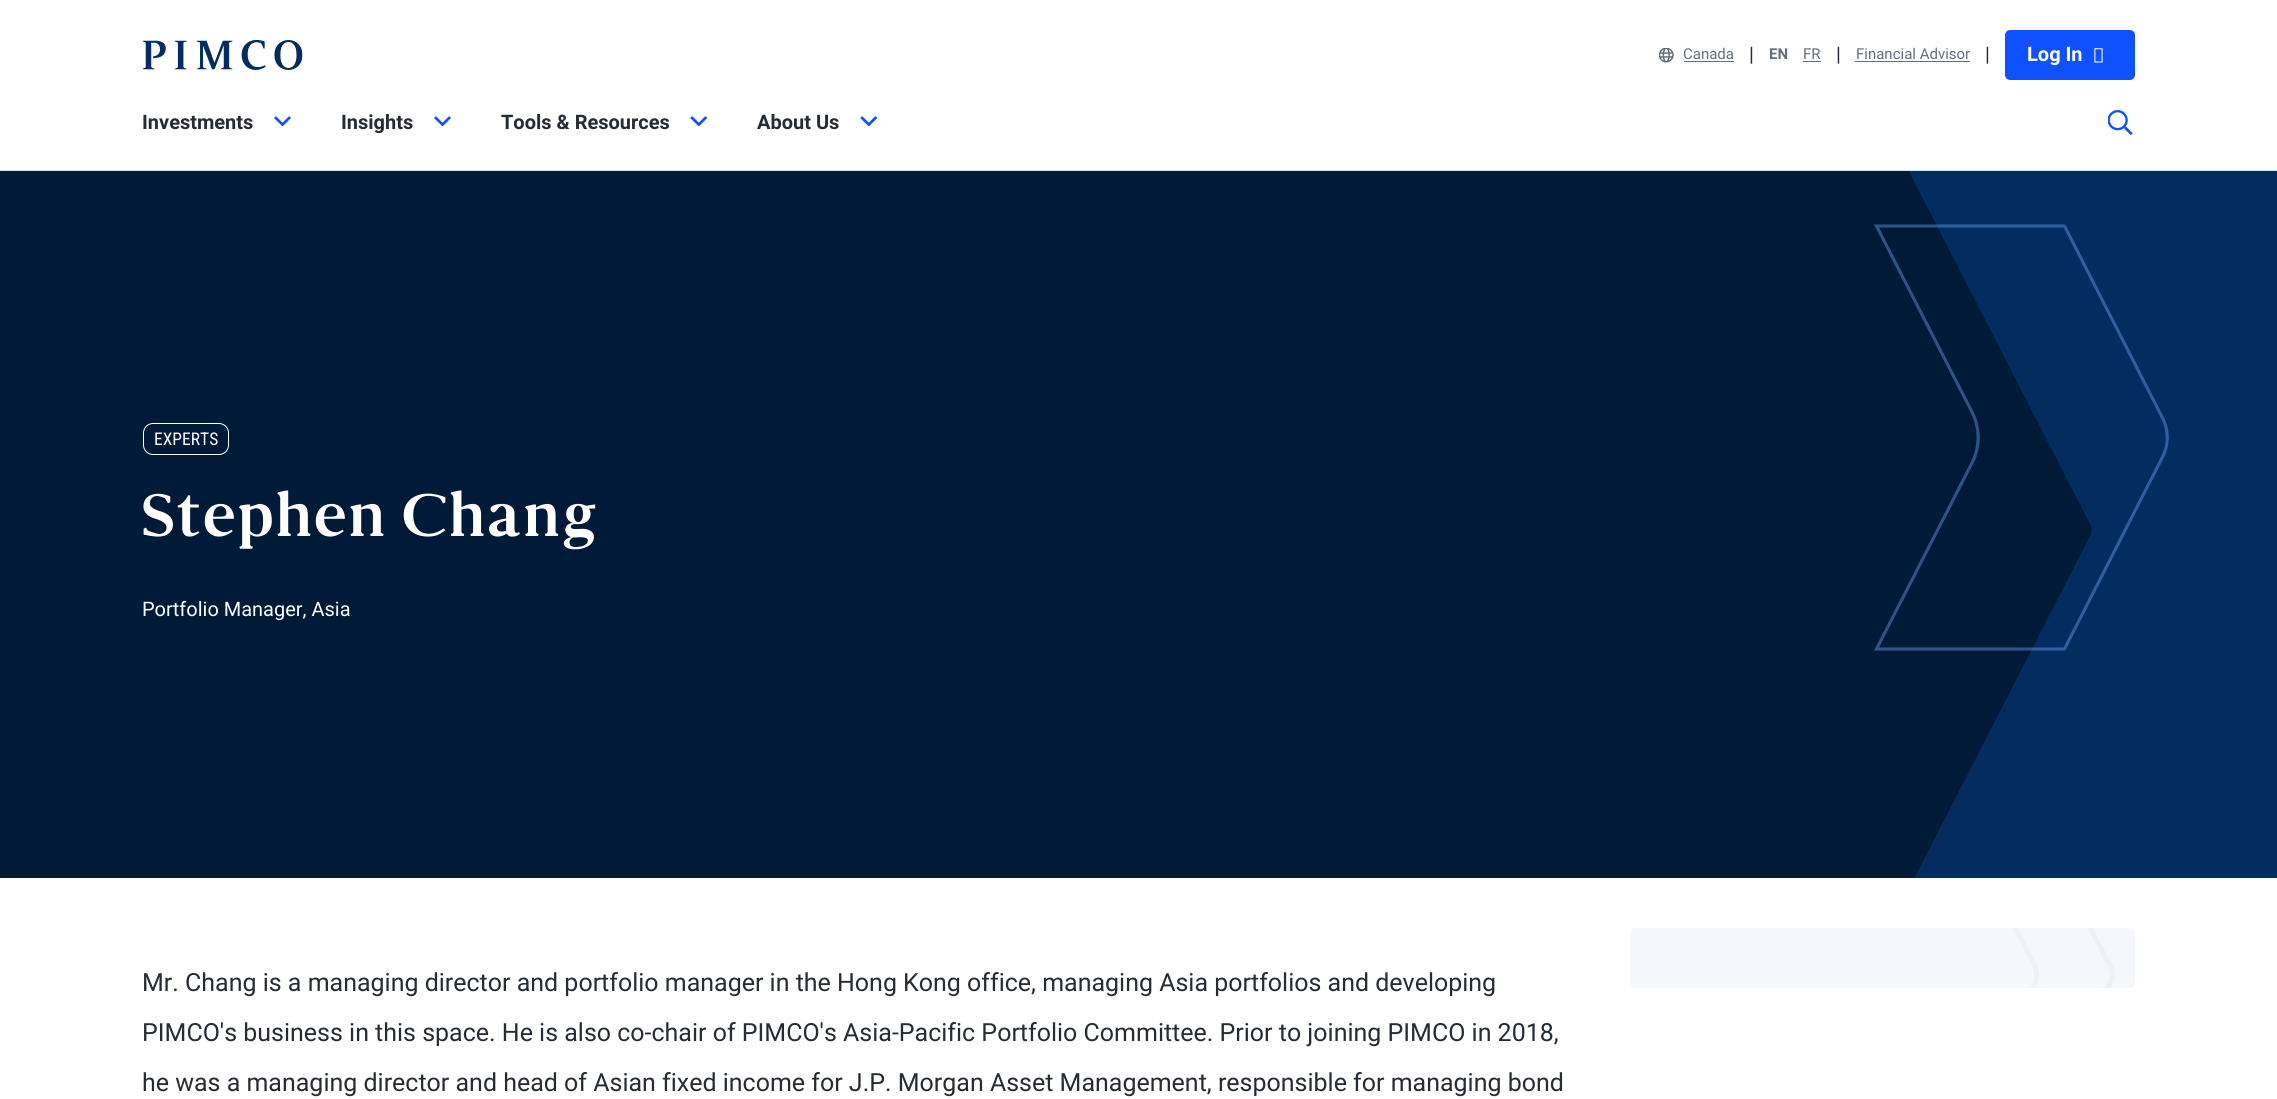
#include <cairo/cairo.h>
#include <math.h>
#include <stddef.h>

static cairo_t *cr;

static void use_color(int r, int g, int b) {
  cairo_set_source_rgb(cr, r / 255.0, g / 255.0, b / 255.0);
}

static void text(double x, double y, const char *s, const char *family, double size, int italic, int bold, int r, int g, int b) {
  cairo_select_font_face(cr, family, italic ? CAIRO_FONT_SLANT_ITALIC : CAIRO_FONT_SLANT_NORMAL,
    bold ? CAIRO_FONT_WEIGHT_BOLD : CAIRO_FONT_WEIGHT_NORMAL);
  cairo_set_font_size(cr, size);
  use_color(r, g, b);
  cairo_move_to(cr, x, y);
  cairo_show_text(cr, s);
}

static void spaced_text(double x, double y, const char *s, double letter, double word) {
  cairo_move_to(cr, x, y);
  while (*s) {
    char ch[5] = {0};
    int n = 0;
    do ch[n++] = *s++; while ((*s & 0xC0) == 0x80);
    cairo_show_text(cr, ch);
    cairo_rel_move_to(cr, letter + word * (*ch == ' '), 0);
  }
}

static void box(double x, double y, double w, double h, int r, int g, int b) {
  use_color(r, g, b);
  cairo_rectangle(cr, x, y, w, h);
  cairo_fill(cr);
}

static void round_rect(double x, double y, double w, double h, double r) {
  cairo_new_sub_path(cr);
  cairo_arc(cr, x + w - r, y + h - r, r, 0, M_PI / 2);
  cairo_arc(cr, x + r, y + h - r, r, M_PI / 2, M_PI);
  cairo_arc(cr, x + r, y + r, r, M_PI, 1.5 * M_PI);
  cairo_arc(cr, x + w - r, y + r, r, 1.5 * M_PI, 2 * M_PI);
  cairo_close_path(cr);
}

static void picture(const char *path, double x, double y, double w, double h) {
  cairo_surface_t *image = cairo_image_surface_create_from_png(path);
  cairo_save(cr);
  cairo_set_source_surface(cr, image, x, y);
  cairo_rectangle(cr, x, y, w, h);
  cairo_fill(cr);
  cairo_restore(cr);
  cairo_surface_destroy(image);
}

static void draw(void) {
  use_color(255, 255, 255);
  cairo_paint(cr);
  box(0, 170, 2277, 1, 220, 222, 227);
  picture("img_01.png", 143, 40, 160, 30);
  picture("img_02.png", 1659, 48, 15, 15);
  box(1684, 61, 50, 1, 100, 110, 123);
  box(1803, 61, 18, 1, 100, 110, 123);
  box(1855, 61, 115, 1, 100, 110, 123);
  use_color(15, 81, 255);
  round_rect(2006.5, 31.5, 127, 47, 3.5);
  cairo_fill_preserve(cr);
  cairo_set_line_width(cr, 3);
  cairo_stroke(cr);
  picture("img_03.png", 2094, 48, 9, 15);
  picture("img_04.png", 274, 116, 17, 10);
  picture("img_04.png", 434, 116, 17, 10);
  picture("img_05.png", 690, 116, 17, 10);
  picture("img_05.png", 860, 116, 17, 10);
  picture("img_06.png", 2108, 110, 25, 25);
  box(0, 171, 2092, 707, 0, 26, 55);
  round_rect(143.5, 423.5, 85, 31, 9.5);
  use_color(255, 255, 255);
  cairo_set_line_width(cr, 1);
  cairo_stroke(cr);
  cairo_save(cr);
  cairo_rectangle(cr, 1879, 171, 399, 707);
  cairo_clip(cr);
  use_color(2, 45, 94);
  cairo_new_path(cr);
  cairo_move_to(cr, 1879, 113);
  cairo_line_to(cr, 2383, 113);
  cairo_line_to(cr, 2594, 524);
  cairo_curve_to(cr, 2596, 528, 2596, 532, 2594, 536);
  cairo_line_to(cr, 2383, 947);
  cairo_line_to(cr, 1879, 947);
  cairo_line_to(cr, 2090, 536);
  cairo_curve_to(cr, 2092, 532, 2092, 528, 2090, 524);
  cairo_close_path(cr);
  cairo_fill(cr);
  cairo_restore(cr);
  cairo_new_path(cr);
  cairo_move_to(cr, 2064.5, 649);
  cairo_line_to(cr, 1876.5, 649);
  cairo_line_to(cr, 1972.5, 462);
  cairo_curve_to(cr, 1980, 446.5, 1980, 428.5, 1972.5, 413);
  cairo_line_to(cr, 1876.5, 226);
  cairo_line_to(cr, 2064.5, 226);
  cairo_line_to(cr, 2162, 417);
  cairo_curve_to(cr, 2169, 430, 2169, 445, 2162, 458);
  cairo_close_path(cr);
  cairo_set_source_rgba(cr, 0.475, 0.663, 1, 0.4);
  cairo_set_line_width(cr, 3.1);
  cairo_stroke(cr);
  use_color(245, 247, 250);
  round_rect(1630, 928, 505, 60, 5);
  cairo_fill(cr);
  cairo_save(cr);
  round_rect(1630, 928, 505, 60, 5);
  cairo_clip(cr);
  cairo_new_path(cr);
  cairo_move_to(cr, 2070.5, 890);
  cairo_line_to(cr, 2110.5, 967);
  cairo_curve_to(cr, 2113, 972, 2113, 978, 2110.5, 983);
  cairo_line_to(cr, 2070.5, 1060);
  cairo_line_to(cr, 1995.5, 1060);
  cairo_line_to(cr, 2034, 985.5);
  cairo_curve_to(cr, 2037.5, 979, 2037.5, 971, 2034, 964.5);
  cairo_line_to(cr, 1995.5, 890);
  cairo_close_path(cr);
  use_color(237, 241, 246);
  cairo_set_line_width(cr, 5);
  cairo_stroke(cr);
  cairo_restore(cr);
  text(1683, 59, "Canada", "Roboto", 15, 0, 0, 100, 110, 123);
  text(1749, 61, "|", "Roboto", 20, 0, 0, 39, 43, 52);
  text(1769, 59, "EN", "Roboto", 15, 0, 1, 100, 110, 123);
  text(1803, 59, "FR", "Roboto", 15, 0, 0, 100, 110, 123);
  text(1836, 61, "|", "Roboto", 20, 0, 0, 39, 43, 52);
  text(1856, 59, "Financial Advisor", "Roboto", 15, 0, 0, 100, 110, 123);
  text(1985, 61, "|", "Roboto", 20, 0, 0, 39, 43, 52);
  text(2027, 61, "Log In", "Roboto", 20, 0, 1, 255, 255, 255);
  text(142, 129, "Investments", "Roboto", 20, 0, 1, 39, 43, 52);
  text(341, 129, "Insights", "Roboto", 20, 0, 1, 39, 43, 52);
  text(501, 129, "Tools & Resources", "Roboto", 20, 0, 1, 39, 43, 52);
  text(757, 129, "About Us", "Roboto", 20, 0, 1, 39, 43, 52);
  text(154, 445, "EXPERTS", "Roboto Condensed", 17.5, 0, 0, 255, 255, 255);
  cairo_select_font_face(cr, "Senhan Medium", CAIRO_FONT_SLANT_NORMAL, CAIRO_FONT_WEIGHT_NORMAL);
  cairo_set_font_size(cr, 60);
  spaced_text(142, 536, "Stephen Chang", 1.25, 0);
  text(142, 616, "Portfolio Manager, Asia", "Roboto", 20, 0, 0, 255, 255, 255);
  text(142, 991, "Mr. Chang is a managing director and portfolio manager in the Hong Kong office, managing Asia portfolios and developing", "Roboto", 25, 0, 0, 39, 43, 52);
  text(142, 1041, "PIMCO's business in this space. He is also co-chair of PIMCO's Asia-Pacific Portfolio Committee. Prior to joining PIMCO in 2018,", "Roboto", 25, 0, 0, 39, 43, 52);
  text(142, 1091, "he was a managing director and head of Asian fixed income for J.P. Morgan Asset Management, responsible for managing bond", "Roboto", 25, 0, 0, 39, 43, 52);
}

int main(void) {
  cairo_surface_t *surface = cairo_image_surface_create(CAIRO_FORMAT_RGB24, 2277, 1099);
  cr = cairo_create(surface);
  cairo_font_options_t *options = cairo_font_options_create();
  cairo_font_options_set_hint_metrics(options, CAIRO_HINT_METRICS_OFF);
  cairo_font_options_set_hint_style(options, CAIRO_HINT_STYLE_NONE);
  cairo_set_font_options(cr, options);
  cairo_set_miter_limit(cr, 4);
  draw();
  cairo_surface_write_to_png(surface, "out.png");
  cairo_font_options_destroy(options);
  cairo_destroy(cr);
  cairo_surface_destroy(surface);
  return 0;
}
